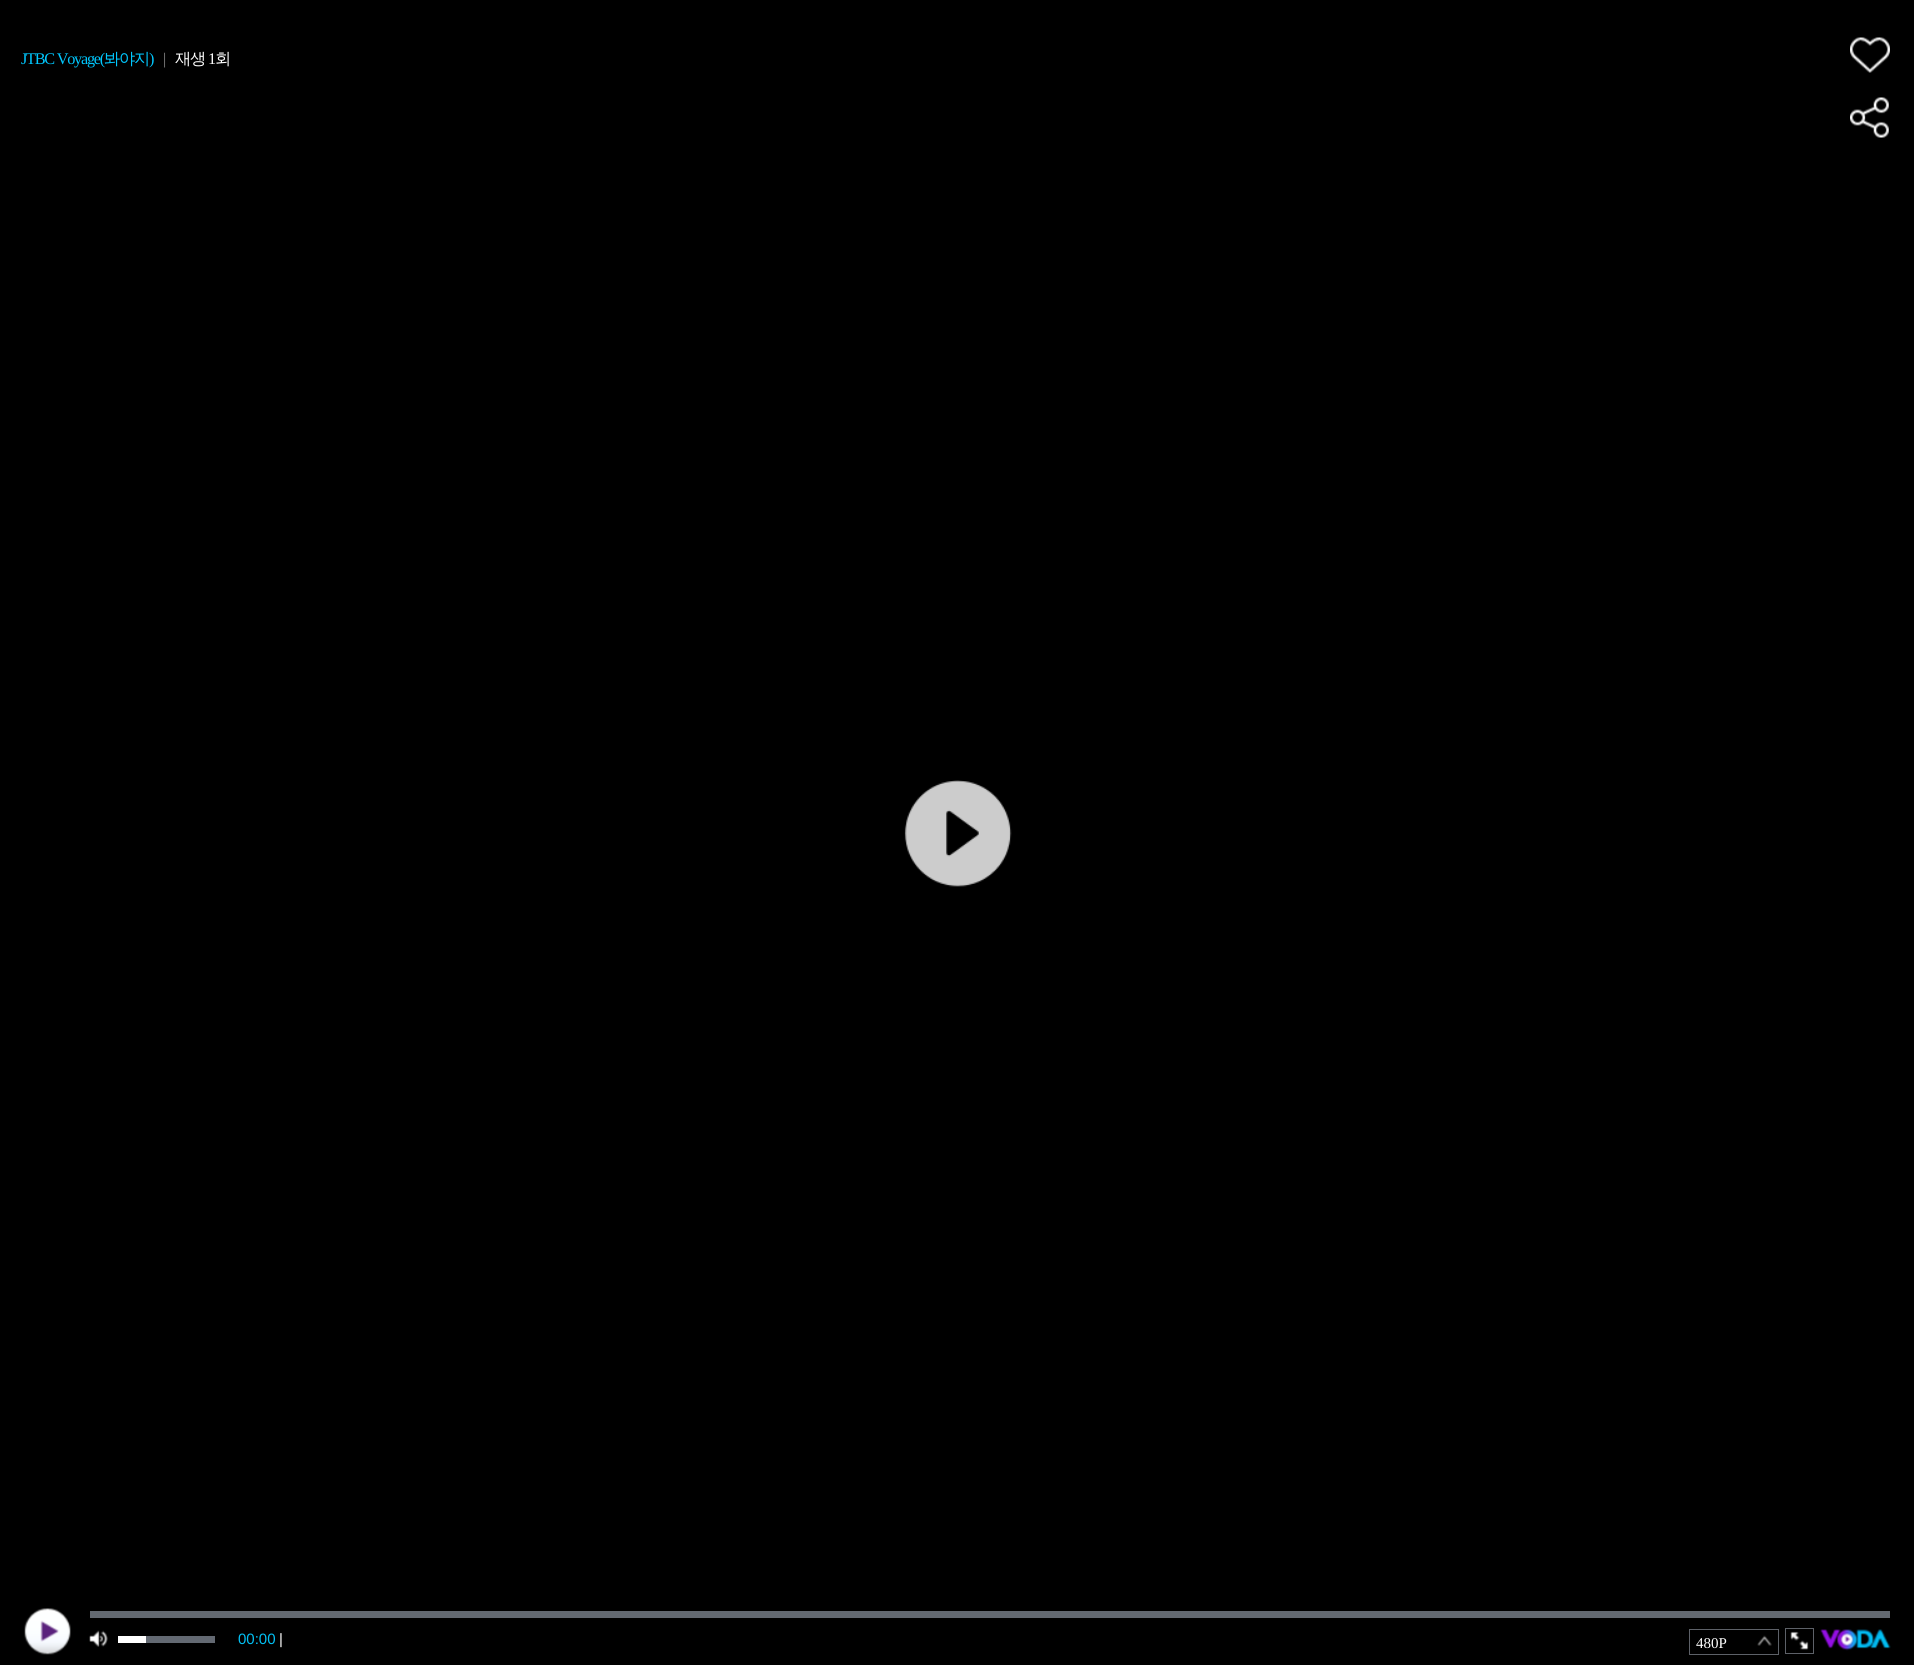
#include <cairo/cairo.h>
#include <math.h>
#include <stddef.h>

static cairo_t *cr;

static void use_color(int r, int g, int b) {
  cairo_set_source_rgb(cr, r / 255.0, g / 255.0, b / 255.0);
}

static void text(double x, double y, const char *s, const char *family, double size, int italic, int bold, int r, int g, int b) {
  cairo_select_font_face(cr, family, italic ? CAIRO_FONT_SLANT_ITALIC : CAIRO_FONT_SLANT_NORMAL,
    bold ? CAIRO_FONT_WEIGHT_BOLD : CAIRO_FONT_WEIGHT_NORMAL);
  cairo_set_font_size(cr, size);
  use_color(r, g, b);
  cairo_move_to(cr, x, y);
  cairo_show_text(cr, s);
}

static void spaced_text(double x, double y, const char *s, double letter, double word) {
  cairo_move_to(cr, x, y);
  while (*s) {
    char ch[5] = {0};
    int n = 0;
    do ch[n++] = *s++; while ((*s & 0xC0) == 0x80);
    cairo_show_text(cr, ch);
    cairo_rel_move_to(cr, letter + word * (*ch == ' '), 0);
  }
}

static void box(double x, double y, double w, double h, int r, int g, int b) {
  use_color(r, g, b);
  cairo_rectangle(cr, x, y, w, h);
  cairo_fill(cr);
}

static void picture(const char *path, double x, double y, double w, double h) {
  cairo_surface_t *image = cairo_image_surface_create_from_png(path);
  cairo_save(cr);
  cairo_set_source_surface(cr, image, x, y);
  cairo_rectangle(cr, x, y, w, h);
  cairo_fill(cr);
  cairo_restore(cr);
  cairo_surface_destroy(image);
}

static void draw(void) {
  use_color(0, 0, 0);
  cairo_paint(cr);
  picture("img_01.png", 1850, 37, 40, 36);
  picture("img_02.png", 1850, 97, 39, 41);
  picture("img_03.png", 904, 780, 108, 107);
  box(90, 1611, 1800, 7, 99, 105, 113);
  picture("img_04.png", 24, 1608, 47, 47);
  picture("img_05.png", 89, 1630, 19, 17);
  box(146, 1636, 69, 7, 99, 105, 114);
  box(118, 1636, 28, 7, 255, 255, 255);
  cairo_rectangle(cr, 1689.5, 1629.5, 89, 25);
  use_color(93, 97, 104);
  cairo_set_line_width(cr, 1);
  cairo_stroke(cr);
  picture("img_06.png", 1757, 1635, 15, 11);
  picture("img_07.png", 1790, 1631, 19, 19);
  cairo_rectangle(cr, 1785.5, 1628.5, 28, 25);
  cairo_stroke(cr);
  picture("img_08.png", 1820, 1629, 71, 22);
  cairo_select_font_face(cr, "Liberation Serif", CAIRO_FONT_SLANT_NORMAL, CAIRO_FONT_WEIGHT_NORMAL);
  cairo_set_font_size(cr, 16.25);
  use_color(0, 200, 255);
  spaced_text(21, 64, "JTBC Voyage(", -1.25, 0);
  cairo_select_font_face(cr, "WenQuanYi Zen Hei Medium", CAIRO_FONT_SLANT_NORMAL, CAIRO_FONT_WEIGHT_NORMAL);
  spaced_text(104, 64, "봐야지", -1.25, 0);
  cairo_select_font_face(cr, "Liberation Serif", CAIRO_FONT_SLANT_NORMAL, CAIRO_FONT_WEIGHT_NORMAL);
  spaced_text(149, 64, ")", -1.25, 0);
  use_color(136, 136, 136);
  spaced_text(163, 64, "|", -1.25, 0);
  cairo_select_font_face(cr, "WenQuanYi Zen Hei Medium", CAIRO_FONT_SLANT_NORMAL, CAIRO_FONT_WEIGHT_NORMAL);
  use_color(255, 255, 255);
  spaced_text(175, 64, "재생", -1.25, 0);
  cairo_select_font_face(cr, "Liberation Serif", CAIRO_FONT_SLANT_NORMAL, CAIRO_FONT_WEIGHT_NORMAL);
  spaced_text(208, 64, "1", -1.25, 0);
  cairo_select_font_face(cr, "WenQuanYi Zen Hei Medium", CAIRO_FONT_SLANT_NORMAL, CAIRO_FONT_WEIGHT_NORMAL);
  spaced_text(215, 64, "회", -1.25, 0);
  text(238, 1644, "00:00", "Liberation Sans", 15, 0, 0, 2, 193, 245);
  text(279, 1644, "|", "Liberation Sans", 15, 0, 0, 255, 255, 255);
  text(1696, 1648, "480P", "Liberation Serif", 15, 0, 0, 255, 255, 255);
}

int main(void) {
  cairo_surface_t *surface = cairo_image_surface_create(CAIRO_FORMAT_RGB24, 1914, 1665);
  cr = cairo_create(surface);
  cairo_font_options_t *options = cairo_font_options_create();
  cairo_font_options_set_hint_metrics(options, CAIRO_HINT_METRICS_OFF);
  cairo_font_options_set_hint_style(options, CAIRO_HINT_STYLE_NONE);
  cairo_set_font_options(cr, options);
  cairo_set_miter_limit(cr, 4);
  draw();
  cairo_surface_write_to_png(surface, "out.png");
  cairo_font_options_destroy(options);
  cairo_destroy(cr);
  cairo_surface_destroy(surface);
  return 0;
}
